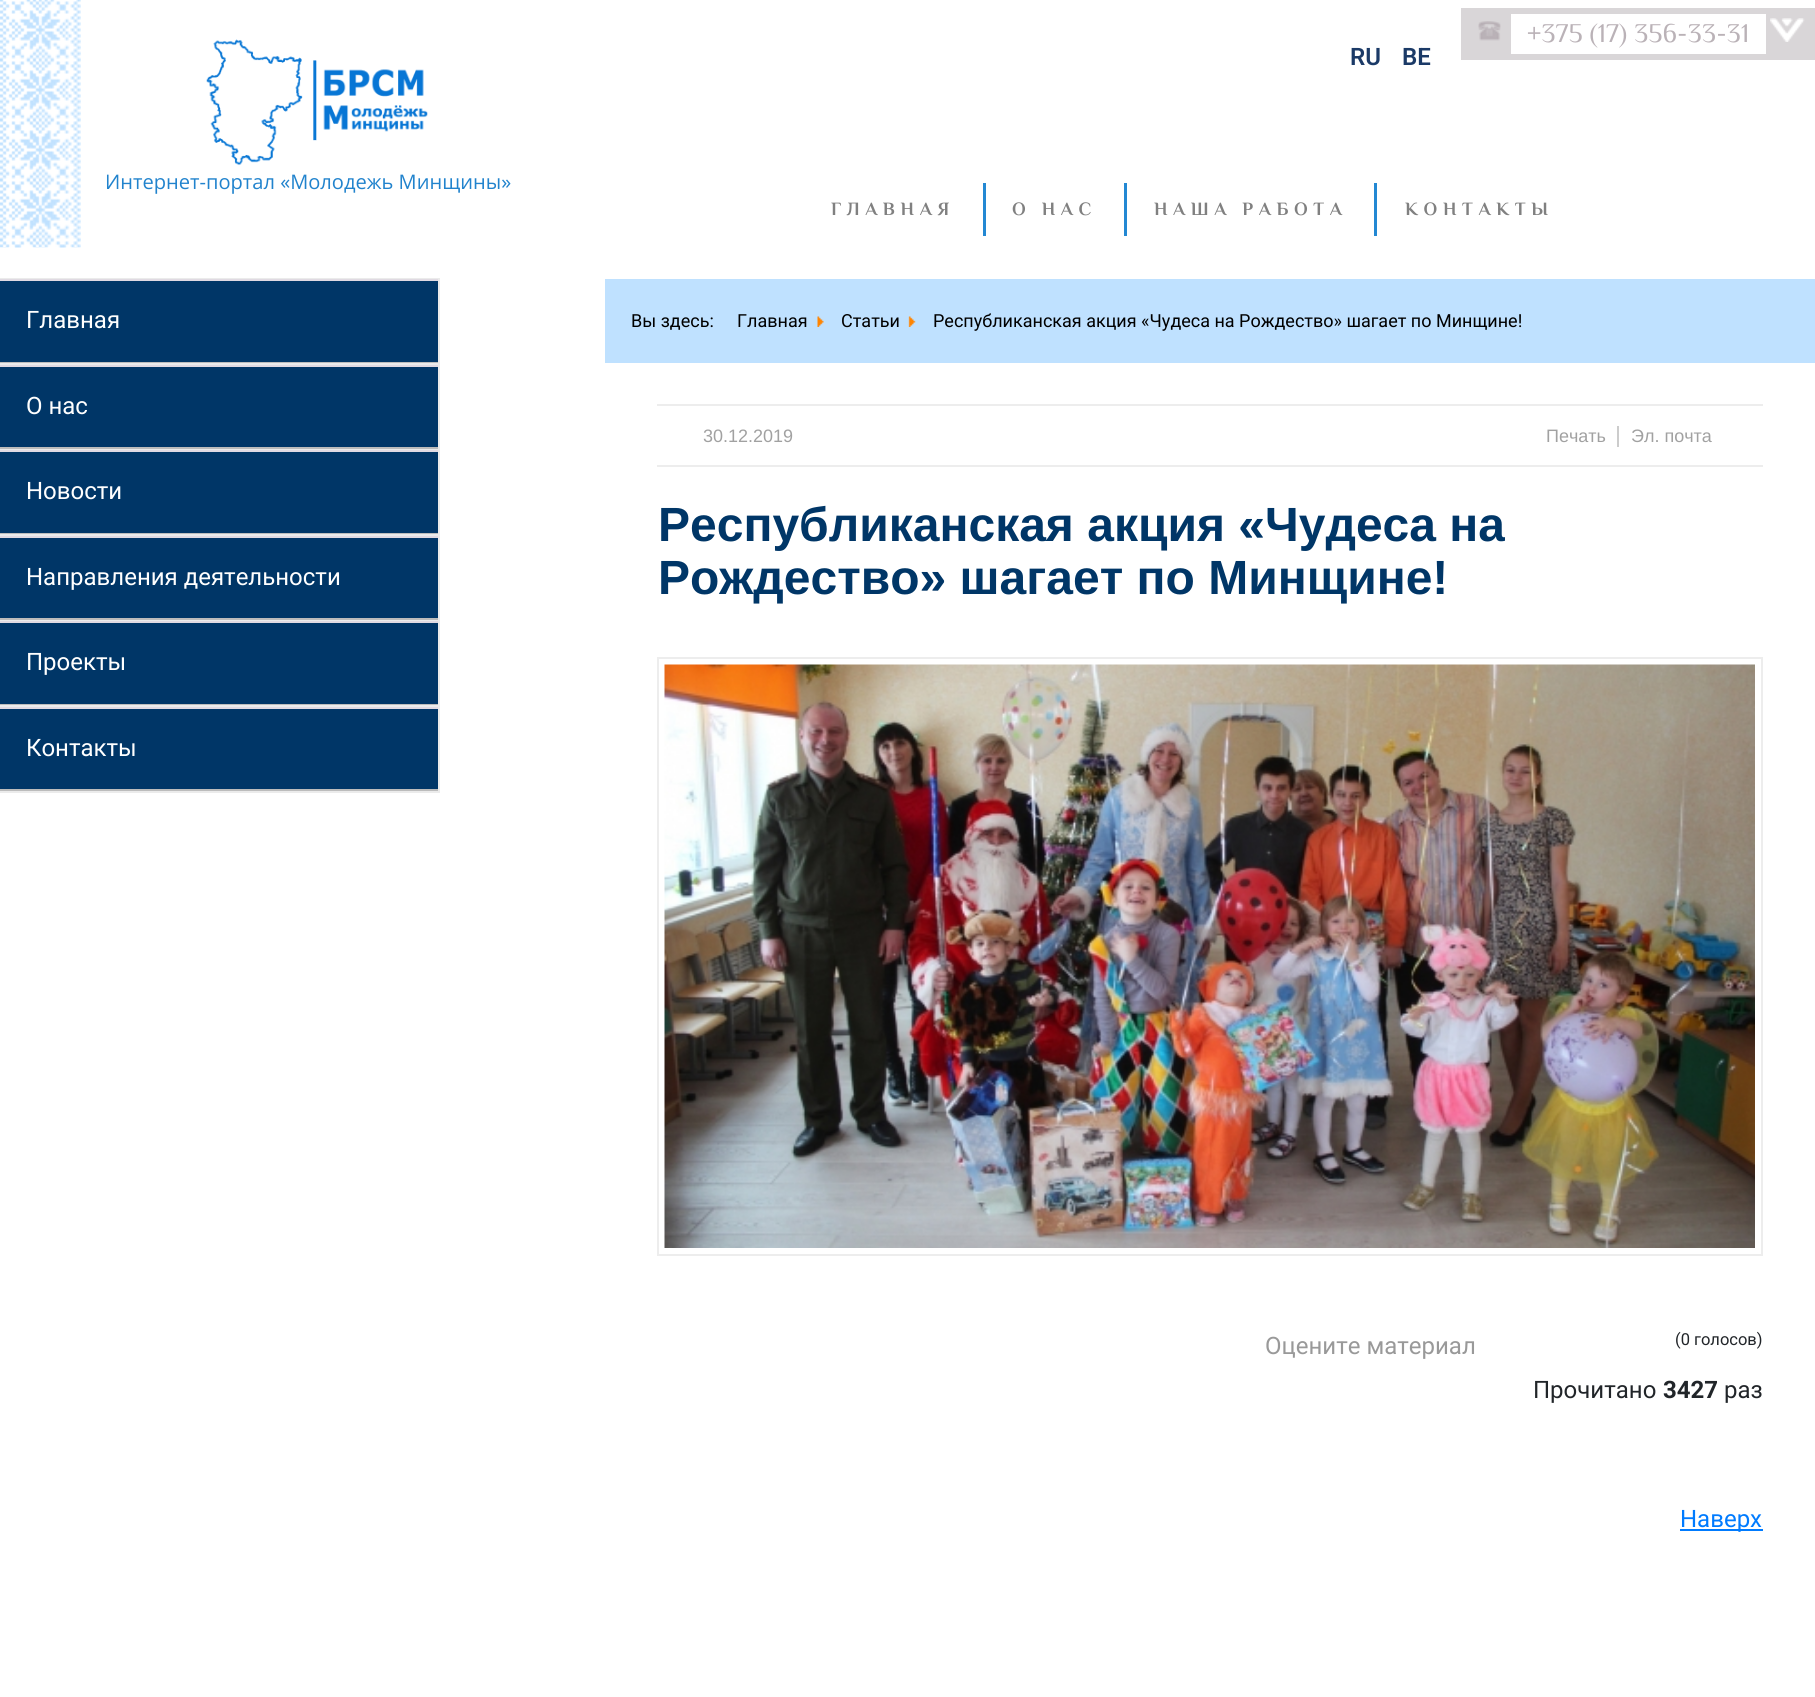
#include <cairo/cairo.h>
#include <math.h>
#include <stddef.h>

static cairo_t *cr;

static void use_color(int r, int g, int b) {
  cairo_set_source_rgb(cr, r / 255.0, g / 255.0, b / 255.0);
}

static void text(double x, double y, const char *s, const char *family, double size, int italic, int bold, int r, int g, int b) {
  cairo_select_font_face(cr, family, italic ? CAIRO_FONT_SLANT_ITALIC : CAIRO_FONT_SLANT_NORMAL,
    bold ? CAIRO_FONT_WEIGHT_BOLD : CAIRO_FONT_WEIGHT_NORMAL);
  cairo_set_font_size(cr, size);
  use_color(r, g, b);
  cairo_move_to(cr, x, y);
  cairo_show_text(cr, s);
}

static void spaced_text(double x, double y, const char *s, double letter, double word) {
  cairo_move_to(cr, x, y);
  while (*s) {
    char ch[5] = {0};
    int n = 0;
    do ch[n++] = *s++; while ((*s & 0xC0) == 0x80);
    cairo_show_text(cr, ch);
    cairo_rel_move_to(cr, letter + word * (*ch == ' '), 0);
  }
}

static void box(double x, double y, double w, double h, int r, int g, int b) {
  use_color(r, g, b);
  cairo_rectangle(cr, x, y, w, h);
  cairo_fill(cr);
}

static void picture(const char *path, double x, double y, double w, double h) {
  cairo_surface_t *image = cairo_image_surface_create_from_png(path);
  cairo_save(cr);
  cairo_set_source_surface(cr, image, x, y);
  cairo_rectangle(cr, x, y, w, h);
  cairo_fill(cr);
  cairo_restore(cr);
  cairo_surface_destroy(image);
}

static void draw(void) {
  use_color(255, 255, 255);
  cairo_paint(cr);
  picture("img_01.png", 0, 0, 81, 248);
  picture("img_02.png", 206, 39, 222, 127);
  cairo_rectangle(cr, 1464, 11, 348, 46);
  use_color(217, 214, 216);
  cairo_set_line_width(cr, 6);
  cairo_stroke(cr);
  box(1467, 14, 44, 40, 217, 214, 216);
  picture("img_03.png", 1478, 21, 23, 20);
  box(1766, 14, 43, 40, 217, 214, 216);
  picture("img_04.png", 1770, 18, 35, 24);
  box(983, 183, 3, 53, 35, 136, 211);
  box(1124, 183, 3, 53, 35, 136, 211);
  box(1374, 183, 3, 53, 35, 136, 211);
  box(0, 278, 440, 1, 235, 235, 235);
  box(438, 278, 2, 514, 235, 235, 235);
  box(0, 791, 440, 2, 235, 235, 235);
  box(0, 281, 438, 81, 0, 54, 103);
  box(0, 279, 438, 2, 224, 218, 226);
  box(0, 362, 438, 1, 188, 188, 188);
  box(0, 363, 438, 2, 235, 235, 235);
  box(0, 367, 438, 80, 0, 54, 103);
  box(0, 365, 438, 2, 224, 218, 226);
  box(0, 447, 438, 2, 188, 188, 188);
  box(0, 449, 438, 1, 235, 235, 235);
  box(0, 452, 438, 81, 0, 54, 103);
  box(0, 450, 438, 2, 224, 218, 226);
  box(0, 533, 438, 1, 188, 188, 188);
  box(0, 534, 438, 2, 235, 235, 235);
  box(0, 538, 438, 80, 0, 54, 103);
  box(0, 536, 438, 2, 224, 218, 226);
  box(0, 618, 438, 2, 188, 188, 188);
  box(0, 620, 438, 1, 235, 235, 235);
  box(0, 623, 438, 81, 0, 54, 103);
  box(0, 621, 438, 2, 224, 218, 226);
  box(0, 704, 438, 1, 188, 188, 188);
  box(0, 705, 438, 2, 235, 235, 235);
  box(0, 709, 438, 80, 0, 54, 103);
  box(0, 707, 438, 2, 224, 218, 226);
  box(0, 789, 438, 2, 188, 188, 188);
  box(605, 279, 1210, 84, 191, 225, 255);
  picture("img_05.png", 817, 316, 7, 11);
  picture("img_06.png", 908, 316, 8, 11);
  box(657, 404, 1106, 2, 237, 237, 237);
  box(657, 465, 1106, 2, 237, 237, 237);
  box(1617, 426, 2, 21, 204, 204, 204);
  cairo_rectangle(cr, 658, 658, 1104, 597);
  use_color(237, 237, 237);
  cairo_set_line_width(cr, 2);
  cairo_stroke(cr);
  picture("img_07.png", 664, 664, 1091, 584);
  box(1680, 1529, 83, 2, 0, 123, 255);
  text(105, 189, "Интернет-портал «Молодежь Минщины»", "Open Sans", 20.1, 0, 0, 33, 131, 205);
  text(1527, 42, "+375 (17) 356-33-31", "Philosopher", 27, 0, 0, 186, 178, 183);
  text(1350, 65, "RU", "Roboto SemiBold", 24, 0, 0, 27, 58, 103);
  text(1402, 65, "BE", "Roboto SemiBold", 24, 0, 0, 27, 58, 103);
  cairo_select_font_face(cr, "Philosopher", CAIRO_FONT_SLANT_NORMAL, CAIRO_FONT_WEIGHT_BOLD);
  cairo_set_font_size(cr, 18.75);
  use_color(128, 128, 128);
  spaced_text(831, 215, "ГЛАВНАЯ", 5.6, 0);
  spaced_text(1012, 215, "О НАС", 5.6, 0);
  spaced_text(1154, 215, "НАША РАБОТА", 5.6, 0);
  spaced_text(1405, 215, "КОНТАКТЫ", 5.6, 0);
  text(26, 328, "Главная", "Roboto", 24, 0, 0, 255, 255, 255);
  text(26, 414, "О нас", "Roboto", 24, 0, 0, 255, 255, 255);
  text(26, 499, "Новости", "Roboto", 24, 0, 0, 255, 255, 255);
  text(26, 585, "Направления деятельности", "Roboto", 24, 0, 0, 255, 255, 255);
  text(26, 670, "Проекты", "Roboto", 24, 0, 0, 255, 255, 255);
  text(26, 756, "Контакты", "Roboto", 24, 0, 0, 255, 255, 255);
  text(631, 327, "Вы здесь:", "Roboto", 18, 0, 0, 0, 0, 0);
  text(737, 327, "Главная", "Roboto", 18, 0, 0, 0, 0, 0);
  text(841, 327, "Статьи", "Roboto", 18, 0, 0, 0, 0, 0);
  text(933, 327, "Республиканская акция «Чудеса на Рождество» шагает по Минщине!", "Roboto", 18, 0, 0, 0, 0, 0);
  text(703, 442, "30.12.2019", "Liberation Sans", 18, 0, 0, 161, 161, 161);
  text(1546, 442, "Печать", "Liberation Sans", 18, 0, 0, 161, 161, 161);
  text(1631, 442, "Эл. почта", "Liberation Sans", 18, 0, 0, 161, 161, 161);
  text(658, 541, "Республиканская акция «Чудеса на", "Liberation Sans", 48, 0, 1, 0, 54, 103);
  text(658, 594, "Рождество» шагает по Минщине!", "Liberation Sans", 48, 0, 1, 0, 54, 103);
  text(1265, 1354, "Оцените материал", "Roboto", 24, 0, 0, 153, 153, 153);
  text(1675, 1345, "(0 голосов)", "Roboto", 16.5, 0, 0, 33, 37, 41);
  text(1533, 1398, "Прочитано", "Roboto", 24, 0, 0, 33, 37, 41);
  text(1663, 1398, "3427", "Roboto", 24, 0, 1, 33, 37, 41);
  text(1724, 1398, "раз", "Roboto", 24, 0, 0, 33, 37, 41);
  text(1680, 1527, "Наверх", "Roboto", 24, 0, 0, 0, 123, 255);
}

int main(void) {
  cairo_surface_t *surface = cairo_image_surface_create(CAIRO_FORMAT_RGB24, 1815, 1697);
  cr = cairo_create(surface);
  cairo_font_options_t *options = cairo_font_options_create();
  cairo_font_options_set_hint_metrics(options, CAIRO_HINT_METRICS_OFF);
  cairo_font_options_set_hint_style(options, CAIRO_HINT_STYLE_NONE);
  cairo_set_font_options(cr, options);
  cairo_set_miter_limit(cr, 4);
  draw();
  cairo_surface_write_to_png(surface, "out.png");
  cairo_font_options_destroy(options);
  cairo_destroy(cr);
  cairo_surface_destroy(surface);
  return 0;
}
